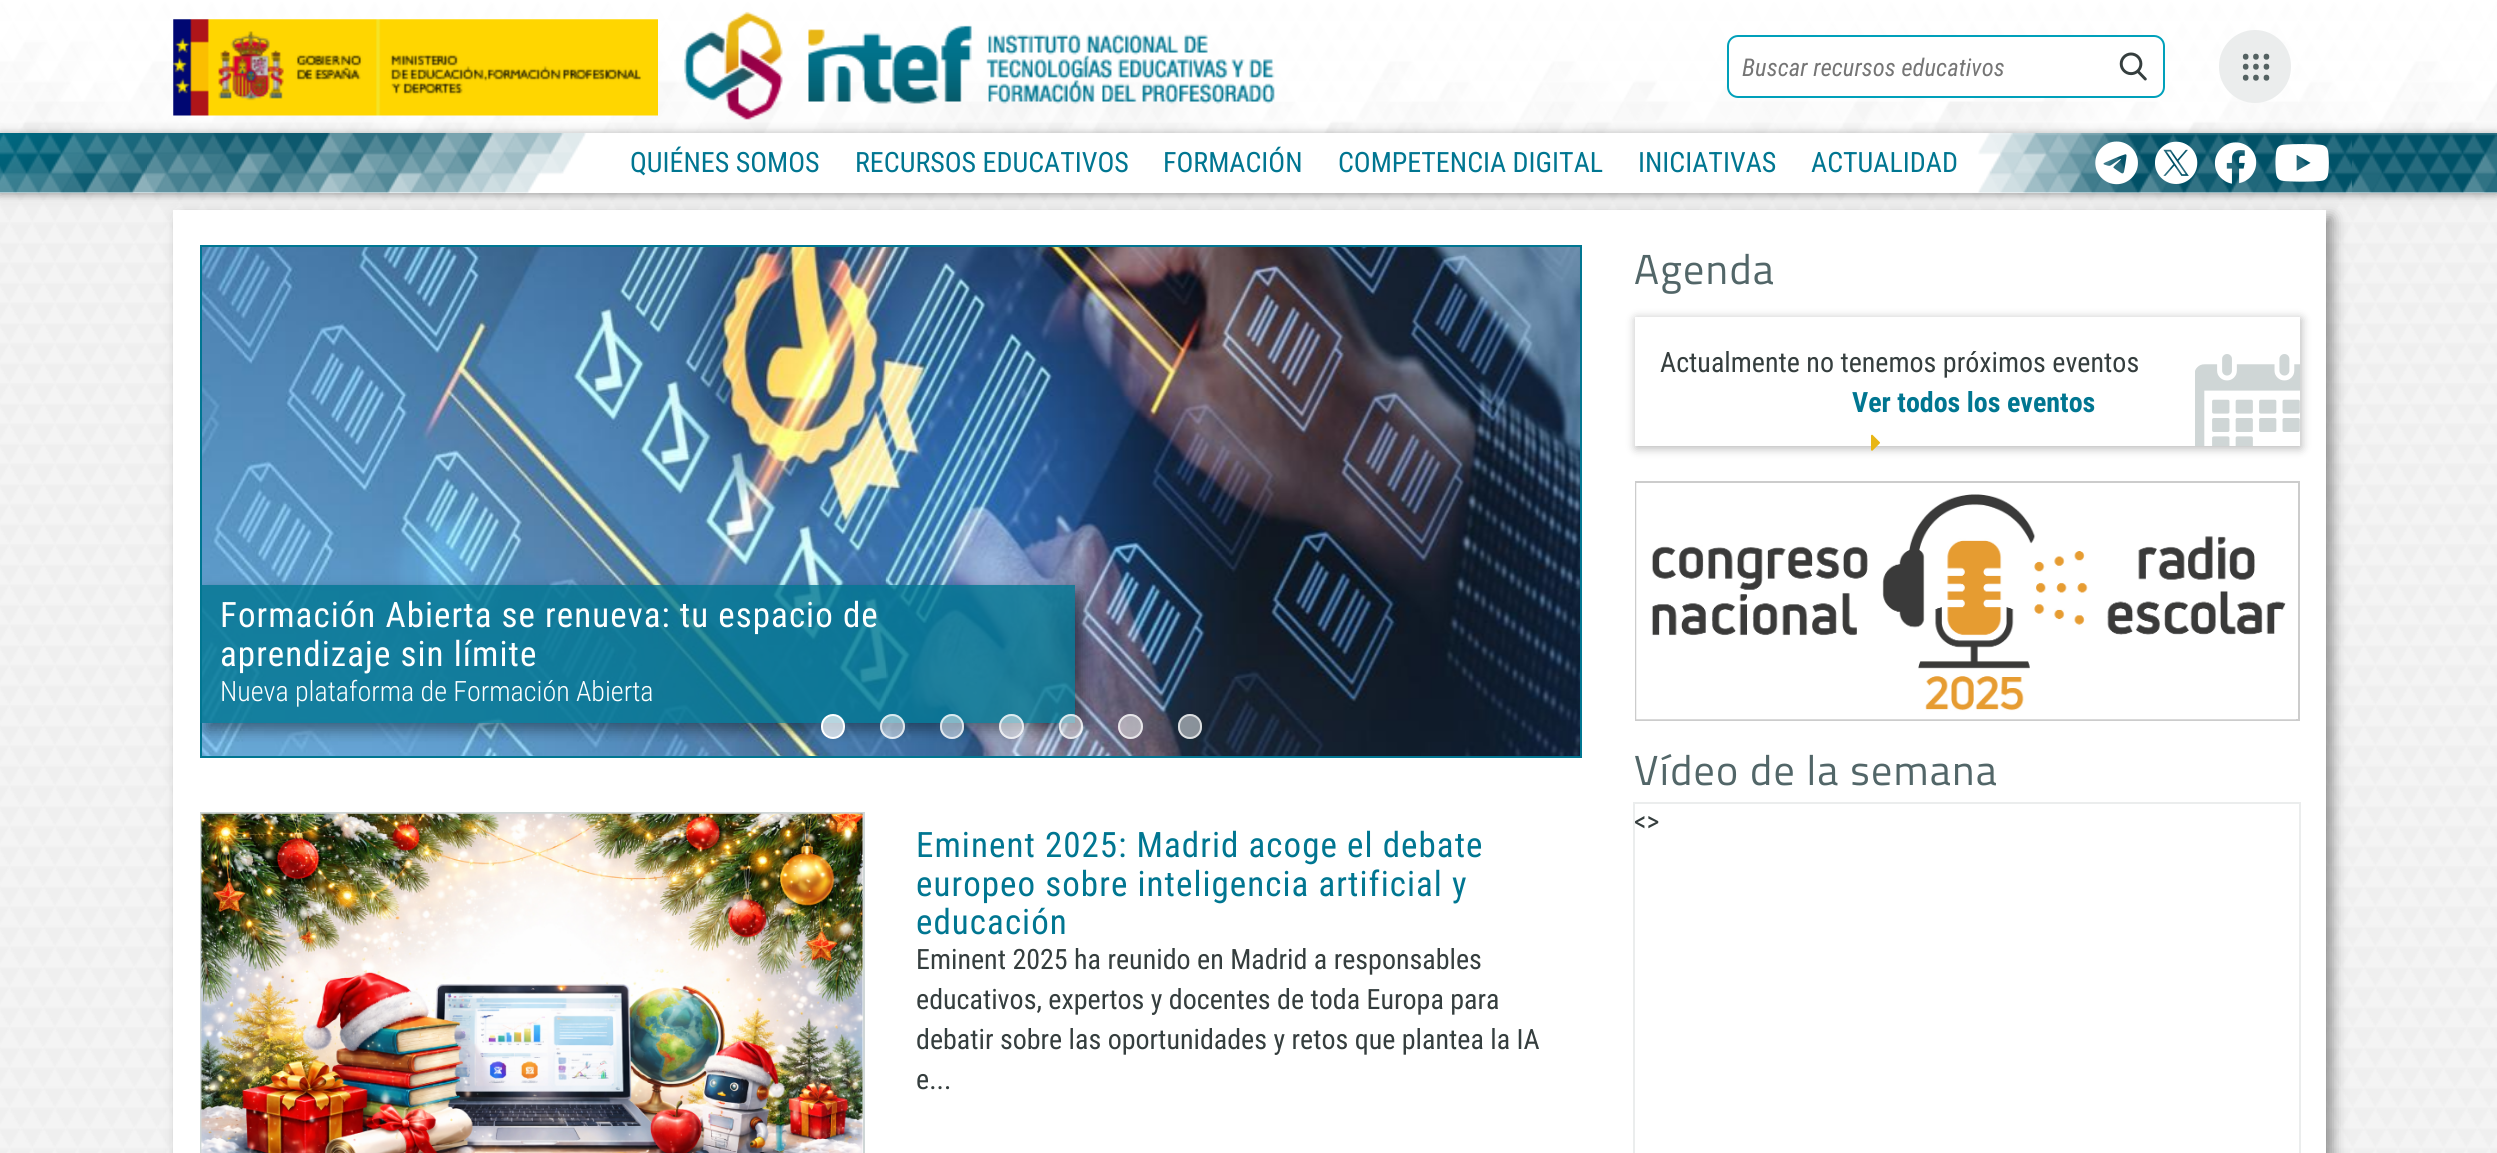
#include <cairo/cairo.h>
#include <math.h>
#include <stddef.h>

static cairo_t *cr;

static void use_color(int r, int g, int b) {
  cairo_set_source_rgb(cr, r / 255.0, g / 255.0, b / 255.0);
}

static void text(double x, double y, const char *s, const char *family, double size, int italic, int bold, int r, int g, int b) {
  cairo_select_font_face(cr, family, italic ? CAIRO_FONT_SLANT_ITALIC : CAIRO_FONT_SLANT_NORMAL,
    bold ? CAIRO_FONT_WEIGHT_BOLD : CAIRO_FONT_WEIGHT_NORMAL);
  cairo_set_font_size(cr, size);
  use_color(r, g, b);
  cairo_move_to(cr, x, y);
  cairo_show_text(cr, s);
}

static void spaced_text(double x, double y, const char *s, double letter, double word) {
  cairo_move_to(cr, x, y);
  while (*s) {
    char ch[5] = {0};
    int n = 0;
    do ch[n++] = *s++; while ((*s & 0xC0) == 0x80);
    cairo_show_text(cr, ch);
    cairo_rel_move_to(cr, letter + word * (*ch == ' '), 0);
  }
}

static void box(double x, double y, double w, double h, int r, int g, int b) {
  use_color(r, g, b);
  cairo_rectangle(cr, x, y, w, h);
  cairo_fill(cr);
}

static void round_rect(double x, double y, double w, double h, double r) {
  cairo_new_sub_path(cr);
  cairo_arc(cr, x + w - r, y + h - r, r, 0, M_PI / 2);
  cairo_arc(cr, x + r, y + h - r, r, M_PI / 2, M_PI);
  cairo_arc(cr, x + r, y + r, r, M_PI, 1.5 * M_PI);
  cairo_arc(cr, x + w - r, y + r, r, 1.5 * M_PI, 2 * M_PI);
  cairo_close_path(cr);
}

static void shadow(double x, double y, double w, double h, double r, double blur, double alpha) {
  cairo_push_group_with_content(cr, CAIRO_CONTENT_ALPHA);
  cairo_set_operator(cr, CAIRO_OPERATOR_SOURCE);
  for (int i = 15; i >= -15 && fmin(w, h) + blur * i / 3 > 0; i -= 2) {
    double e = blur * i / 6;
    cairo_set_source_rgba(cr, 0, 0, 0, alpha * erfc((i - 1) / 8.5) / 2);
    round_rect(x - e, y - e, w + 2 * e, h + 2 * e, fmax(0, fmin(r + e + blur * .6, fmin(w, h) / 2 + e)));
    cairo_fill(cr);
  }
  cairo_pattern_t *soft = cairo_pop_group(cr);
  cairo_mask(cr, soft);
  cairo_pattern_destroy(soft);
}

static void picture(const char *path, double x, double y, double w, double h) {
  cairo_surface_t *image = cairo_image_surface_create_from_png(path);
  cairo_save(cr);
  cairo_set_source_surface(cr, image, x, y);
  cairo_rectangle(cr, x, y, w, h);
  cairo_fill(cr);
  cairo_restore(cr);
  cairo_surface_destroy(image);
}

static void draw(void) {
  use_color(255, 255, 255);
  cairo_paint(cr);
  picture("img_01.png", 0, 0, 2497, 1153);
  picture("img_02.png", 0, 0, 2497, 133);
  picture("img_03.png", 173, 19, 485, 97);
  picture("img_04.png", 684, 11, 591, 109);
  use_color(255, 255, 255);
  round_rect(1728, 36, 436, 61, 10);
  cairo_fill_preserve(cr);
  use_color(0, 160, 186);
  cairo_stroke(cr);
  picture("img_05.png", 2119, 52, 28, 29);
  use_color(235, 237, 237);
  round_rect(2219, 30, 72, 73, 36);
  cairo_fill(cr);
  use_color(0, 0, 0);
  shadow(0, 135, 2497, 59, 0, 5, 0.4);
  box(0, 133, 2497, 60, 255, 255, 255);
  picture("img_06.png", 0, 133, 147, 60);
  picture("img_07.png", 147, 133, 439, 60);
  picture("img_08.png", 1978, 133, 374, 60);
  picture("img_09.png", 2095, 141, 43, 44);
  picture("img_10.png", 2155, 141, 43, 43);
  picture("img_11.png", 2214, 142, 43, 42);
  picture("img_12.png", 2275, 144, 54, 38);
  picture("img_13.png", 2352, 133, 145, 60);
  use_color(0, 0, 0);
  shadow(180, 217, 2153, 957, 0, 7, 0.4);
  box(173, 210, 2153, 943, 255, 255, 255);
  picture("img_14.png", 202, 247, 1378, 509);
  cairo_rectangle(cr, 201, 246, 1380, 511);
  use_color(0, 118, 145);
  cairo_stroke(cr);
  cairo_save(cr);
  cairo_rectangle(cr, 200, 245, 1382, 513);
  cairo_clip(cr);
  cairo_set_fill_rule(cr, CAIRO_FILL_RULE_EVEN_ODD);
  cairo_new_path(cr);
  cairo_move_to(cr, 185, 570);
  cairo_line_to(cr, 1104, 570);
  cairo_line_to(cr, 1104, 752);
  cairo_line_to(cr, 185, 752);
  cairo_close_path(cr);
  cairo_move_to(cr, 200, 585);
  cairo_line_to(cr, 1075, 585);
  cairo_line_to(cr, 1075, 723);
  cairo_line_to(cr, 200, 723);
  cairo_close_path(cr);
  cairo_clip(cr);
  use_color(0, 0, 0);
  shadow(207, 592, 875, 138, 0, 7, 0.4);
  cairo_restore(cr);
  cairo_set_source_rgba(cr, 0, 0.463, 0.569, 0.8);
  cairo_rectangle(cr, 202, 585, 873, 138);
  cairo_fill(cr);
  cairo_set_source_rgba(cr, 1, 1, 1, 0.7);
  round_rect(822, 715, 22, 23, 11);
  cairo_fill_preserve(cr);
  use_color(255, 255, 255);
  cairo_stroke(cr);
  cairo_set_source_rgba(cr, 1, 1, 1, 0.49);
  cairo_arc(cr, 892.5, 726.5, 12.5, 0, 2 * M_PI);
  cairo_fill(cr);
  cairo_arc(cr, 892.5, 726.5, 11.5, 0, 2 * M_PI);
  cairo_set_source_rgba(cr, 1, 1, 1, 0.7);
  cairo_stroke(cr);
  cairo_set_source_rgba(cr, 1, 1, 1, 0.49);
  round_rect(940, 714, 24, 25, 12);
  cairo_fill(cr);
  round_rect(941, 715, 22, 23, 11);
  cairo_set_source_rgba(cr, 1, 1, 1, 0.7);
  cairo_stroke(cr);
  cairo_set_source_rgba(cr, 1, 1, 1, 0.49);
  cairo_arc(cr, 1011.5, 726.5, 12.5, 0, 2 * M_PI);
  cairo_fill(cr);
  cairo_arc(cr, 1011.5, 726.5, 11.5, 0, 2 * M_PI);
  cairo_set_source_rgba(cr, 1, 1, 1, 0.7);
  cairo_stroke(cr);
  cairo_set_source_rgba(cr, 1, 1, 1, 0.49);
  round_rect(1059, 714, 24, 25, 12);
  cairo_fill(cr);
  round_rect(1060, 715, 22, 23, 11);
  cairo_set_source_rgba(cr, 1, 1, 1, 0.7);
  cairo_stroke(cr);
  cairo_set_source_rgba(cr, 1, 1, 1, 0.49);
  cairo_arc(cr, 1130.5, 726.5, 12.5, 0, 2 * M_PI);
  cairo_fill(cr);
  cairo_arc(cr, 1130.5, 726.5, 11.5, 0, 2 * M_PI);
  cairo_set_source_rgba(cr, 1, 1, 1, 0.7);
  cairo_stroke(cr);
  cairo_set_source_rgba(cr, 1, 1, 1, 0.49);
  round_rect(1178, 714, 24, 25, 12);
  cairo_fill(cr);
  round_rect(1179, 715, 22, 23, 11);
  cairo_set_source_rgba(cr, 1, 1, 1, 0.7);
  cairo_stroke(cr);
  cairo_rectangle(cr, 201, 813, 663, 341);
  use_color(207, 214, 214);
  cairo_stroke(cr);
  picture("img_15.png", 201, 813, 662, 340);
  use_color(0, 0, 0);
  shadow(1636, 319, 665, 129, 0, 5, 0.3);
  box(1635, 317, 665, 129, 255, 255, 255);
  picture("img_16.png", 2195, 354, 105, 92);
  picture("img_17.png", 1871, 434, 9, 17);
  cairo_rectangle(cr, 1636, 482, 663, 238);
  use_color(204, 204, 204);
  cairo_stroke(cr);
  picture("img_18.png", 1636, 483, 660, 237);
  text(1742, 76, "Buscar recursos educativos", "Roboto Condensed", 24.5, 1, 0, 117, 117, 117);
  cairo_select_font_face(cr, "Roboto Condensed", CAIRO_FONT_SLANT_NORMAL, CAIRO_FONT_WEIGHT_NORMAL);
  cairo_set_font_size(cr, 28);
  use_color(84, 98, 98);
  spaced_text(2241, 67, "• • •", -2.75, 0);
  spaced_text(2241, 77, "• • •", -2.75, 0);
  spaced_text(2241, 88, "• • •", -2.75, 0);
  text(630, 172, "QUIÉNES SOMOS", "Roboto Condensed", 28, 0, 0, 0, 118, 145);
  text(855, 172, "RECURSOS EDUCATIVOS", "Roboto Condensed", 28, 0, 0, 0, 118, 145);
  text(1163, 172, "FORMACIÓN", "Roboto Condensed", 28, 0, 0, 0, 118, 145);
  text(1338, 172, "COMPETENCIA DIGITAL", "Roboto Condensed", 28, 0, 0, 0, 118, 145);
  text(1638, 172, "INICIATIVAS", "Roboto Condensed", 28, 0, 0, 0, 118, 145);
  text(1811, 172, "ACTUALIDAD", "Roboto Condensed", 28, 0, 0, 0, 118, 145);
  cairo_set_font_size(cr, 35);
  use_color(255, 255, 255);
  spaced_text(220, 627, "Formación Abierta se renueva: tu espacio de", 1.05, 0);
  spaced_text(220, 666, "aprendizaje sin límite", 1.05, 0);
  text(220, 701, "Nueva plataforma de Formación Abierta", "Roboto Condensed Light", 28, 0, 0, 255, 255, 255);
  cairo_select_font_face(cr, "Roboto Condensed", CAIRO_FONT_SLANT_NORMAL, CAIRO_FONT_WEIGHT_NORMAL);
  cairo_set_font_size(cr, 35);
  use_color(0, 118, 145);
  spaced_text(916, 857, "Eminent 2025: Madrid acoge el debate", 1.05, 0);
  spaced_text(916, 896, "europeo sobre inteligencia artificial y", 1.05, 0);
  spaced_text(916, 934, "educación", 1.05, 0);
  text(916, 969, "Eminent 2025 ha reunido en Madrid a responsables", "Roboto Condensed", 28, 0, 0, 53, 62, 62);
  text(916, 1009, "educativos, expertos y docentes de toda Europa para", "Roboto Condensed", 28, 0, 0, 53, 62, 62);
  text(916, 1049, "debatir sobre las oportunidades y retos que plantea la IA", "Roboto Condensed", 28, 0, 0, 53, 62, 62);
  text(916, 1089, "e...", "Roboto Condensed", 28, 0, 0, 53, 62, 62);
  cairo_select_font_face(cr, "Titillium Web", CAIRO_FONT_SLANT_NORMAL, CAIRO_FONT_WEIGHT_NORMAL);
  cairo_set_font_size(cr, 42);
  use_color(82, 102, 104);
  spaced_text(1634, 284, "Agenda", 1.25, 0);
  text(1660, 372, "Actualmente no tenemos próximos eventos", "Roboto Condensed", 28, 0, 0, 53, 62, 62);
  text(1852, 412, "Ver todos los eventos", "Roboto Condensed", 28, 0, 1, 0, 118, 145);
  cairo_select_font_face(cr, "Titillium Web", CAIRO_FONT_SLANT_NORMAL, CAIRO_FONT_WEIGHT_NORMAL);
  cairo_set_font_size(cr, 42);
  use_color(82, 102, 104);
  spaced_text(1634, 785, "Vídeo de la semana", 1.25, 0);
  text(1634, 831, "<>", "Roboto Condensed", 28, 0, 0, 53, 62, 62);
  cairo_rectangle(cr, 1634, 803, 666, 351);
  use_color(235, 237, 237);
  cairo_stroke(cr);
}

int main(void) {
  cairo_surface_t *surface = cairo_image_surface_create(CAIRO_FORMAT_RGB24, 2497, 1153);
  cr = cairo_create(surface);
  cairo_font_options_t *options = cairo_font_options_create();
  cairo_font_options_set_hint_metrics(options, CAIRO_HINT_METRICS_OFF);
  cairo_font_options_set_hint_style(options, CAIRO_HINT_STYLE_NONE);
  cairo_set_font_options(cr, options);
  cairo_set_miter_limit(cr, 4);
  draw();
  cairo_surface_write_to_png(surface, "out.png");
  cairo_font_options_destroy(options);
  cairo_destroy(cr);
  cairo_surface_destroy(surface);
  return 0;
}
